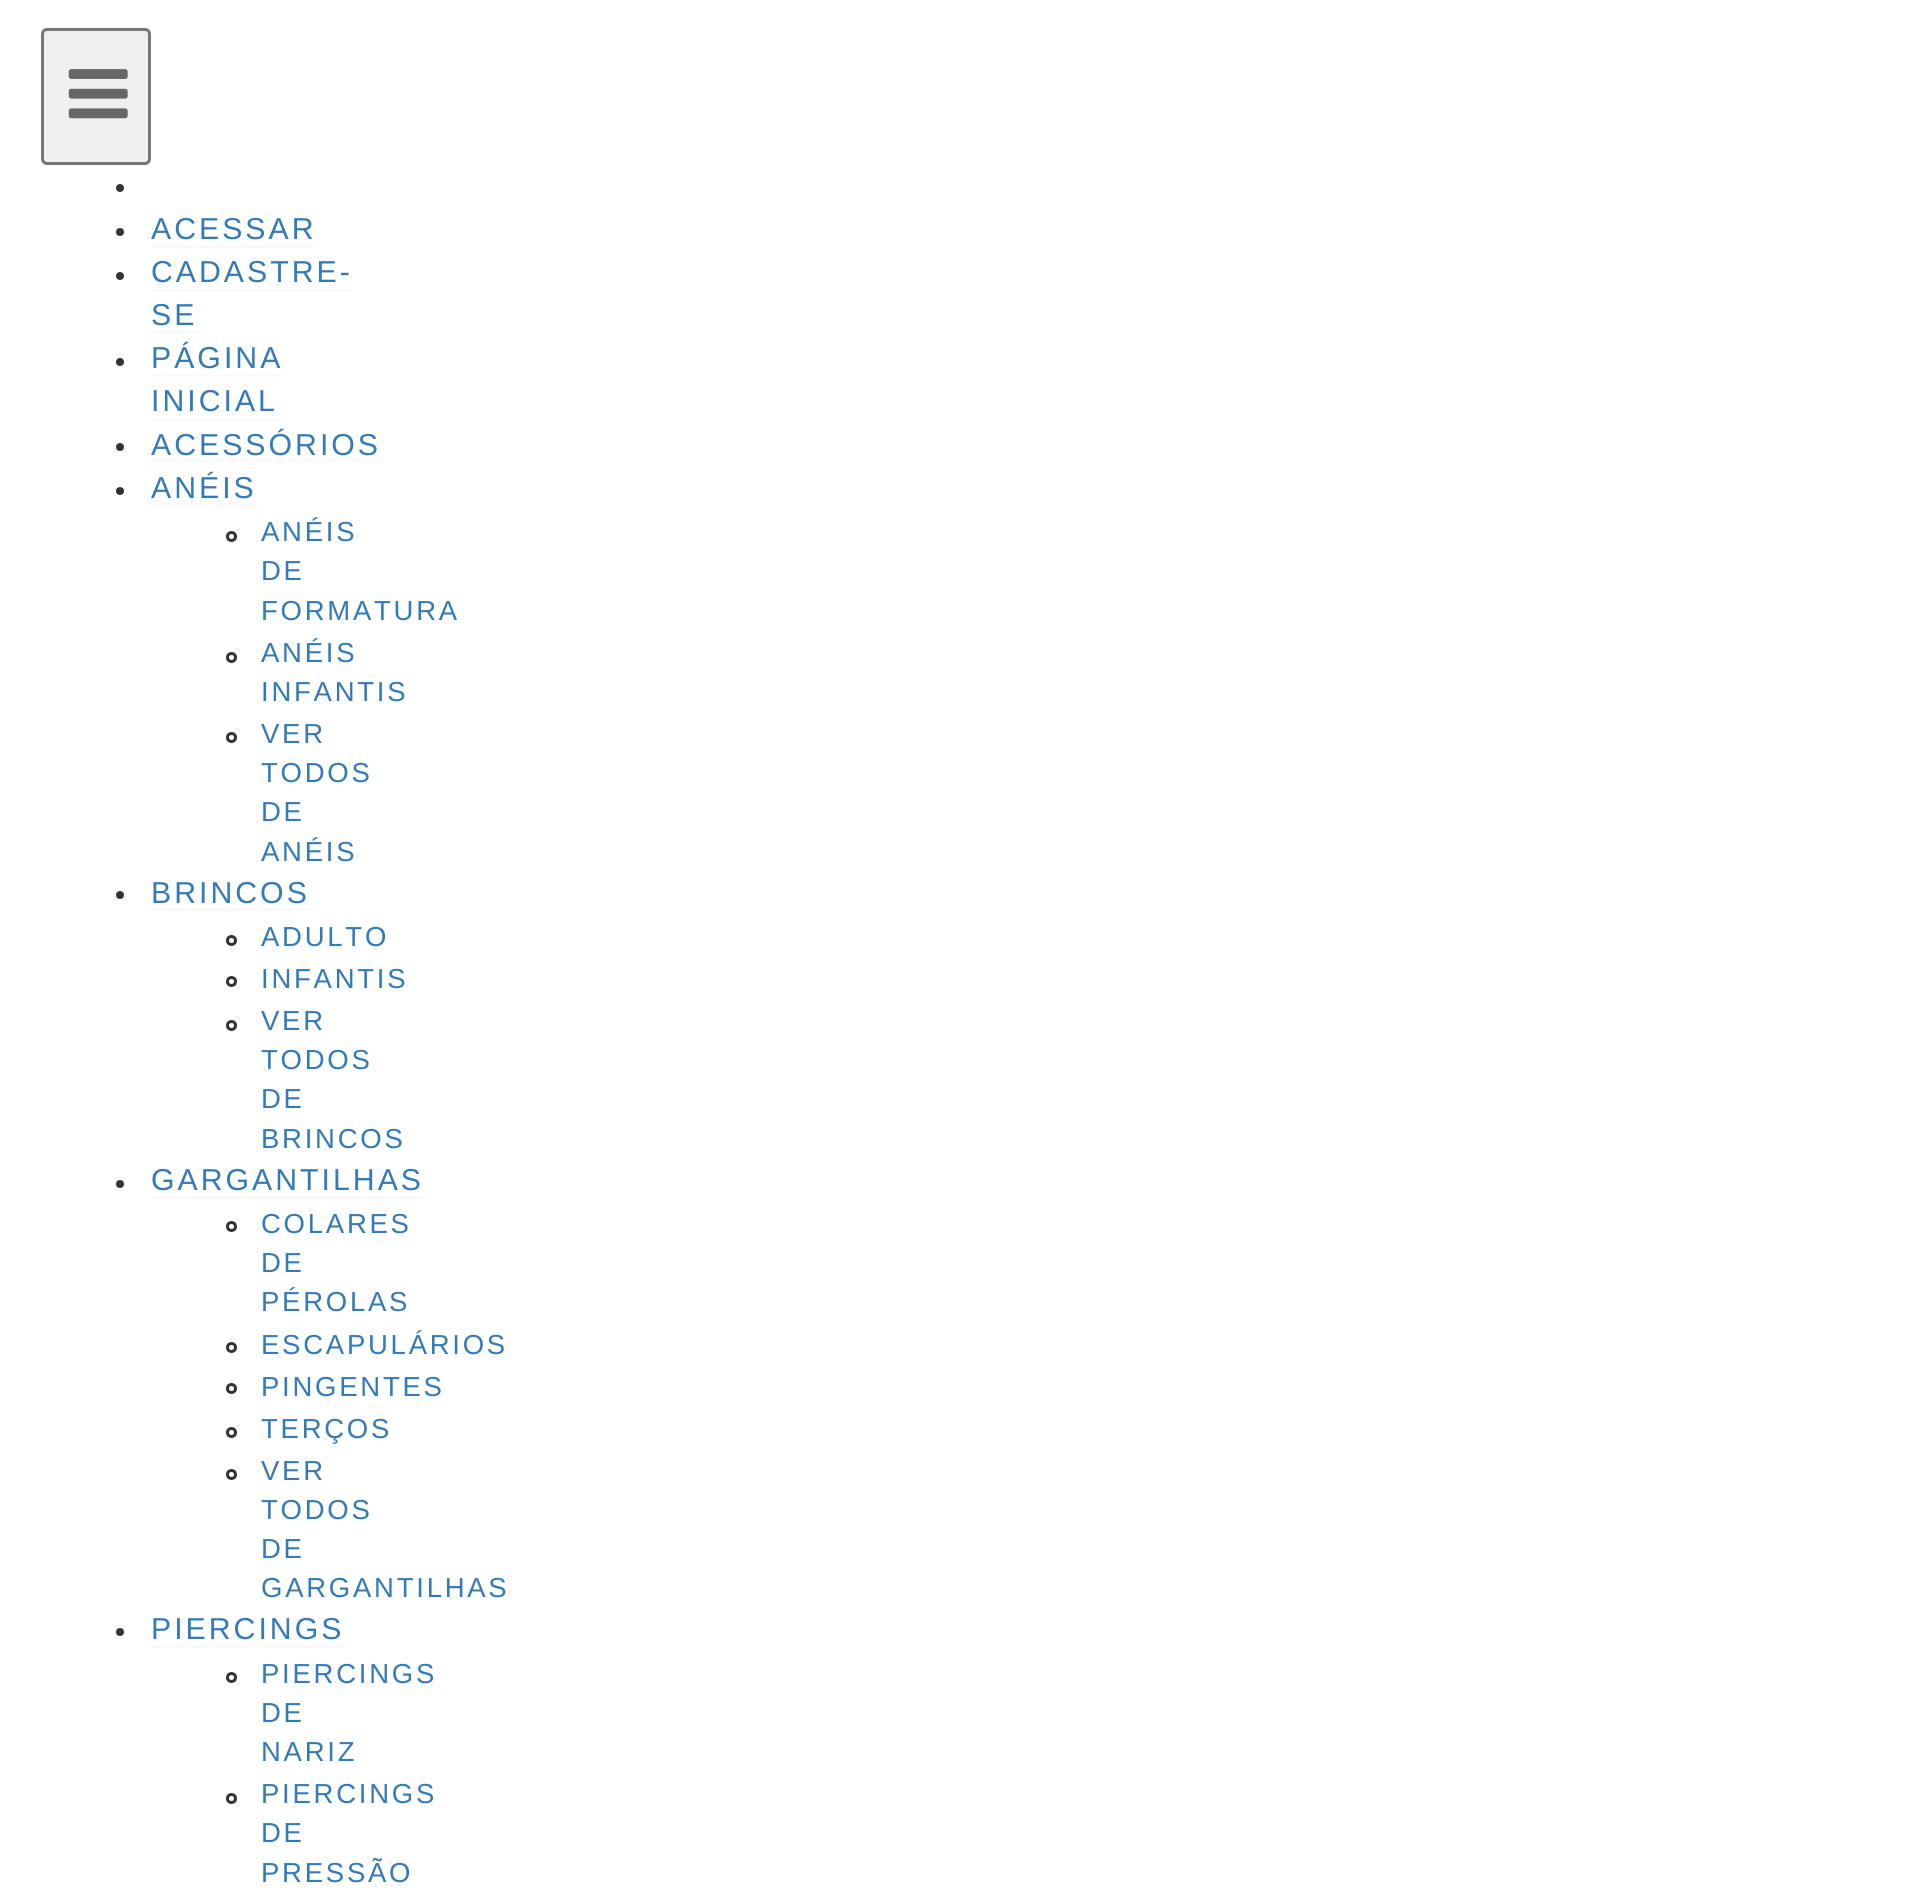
#include <cairo/cairo.h>
#include <math.h>
#include <stddef.h>

static cairo_t *cr;

static void use_color(int r, int g, int b) {
  cairo_set_source_rgb(cr, r / 255.0, g / 255.0, b / 255.0);
}

static void spaced_text(double x, double y, const char *s, double letter, double word) {
  cairo_move_to(cr, x, y);
  while (*s) {
    char ch[5] = {0};
    int n = 0;
    do ch[n++] = *s++; while ((*s & 0xC0) == 0x80);
    cairo_show_text(cr, ch);
    cairo_rel_move_to(cr, letter + word * (*ch == ' '), 0);
  }
}

static void box(double x, double y, double w, double h, int r, int g, int b) {
  use_color(r, g, b);
  cairo_rectangle(cr, x, y, w, h);
  cairo_fill(cr);
}

static void round_rect(double x, double y, double w, double h, double r) {
  cairo_new_sub_path(cr);
  cairo_arc(cr, x + w - r, y + h - r, r, 0, M_PI / 2);
  cairo_arc(cr, x + r, y + h - r, r, M_PI / 2, M_PI);
  cairo_arc(cr, x + r, y + r, r, M_PI, 1.5 * M_PI);
  cairo_arc(cr, x + w - r, y + r, r, 1.5 * M_PI, 2 * M_PI);
  cairo_close_path(cr);
}

static void picture(const char *path, double x, double y, double w, double h) {
  cairo_surface_t *image = cairo_image_surface_create_from_png(path);
  cairo_save(cr);
  cairo_set_source_surface(cr, image, x, y);
  cairo_rectangle(cr, x, y, w, h);
  cairo_fill(cr);
  cairo_restore(cr);
  cairo_surface_destroy(image);
}

static void draw(void) {
  use_color(255, 255, 255);
  cairo_paint(cr);
  use_color(239, 239, 239);
  round_rect(42.5, 29.5, 107, 134, 4.5);
  cairo_fill_preserve(cr);
  use_color(118, 118, 118);
  cairo_set_line_width(cr, 3);
  cairo_stroke(cr);
  picture("img_01.png", 68, 69, 60, 50);
  use_color(51, 51, 51);
  cairo_arc(cr, 120, 188, 4, 0, 2 * M_PI);
  cairo_fill(cr);
  cairo_arc(cr, 120, 232, 4, 0, 2 * M_PI);
  cairo_fill(cr);
  box(151, 245, 165, 3, 250, 250, 250);
  use_color(51, 51, 51);
  cairo_arc(cr, 120, 276, 4, 0, 2 * M_PI);
  cairo_fill(cr);
  box(151, 289, 201, 3, 250, 250, 250);
  box(151, 330, 47, 3, 250, 250, 250);
  use_color(51, 51, 51);
  cairo_arc(cr, 120, 362, 4, 0, 2 * M_PI);
  cairo_fill(cr);
  box(151, 374, 132, 3, 250, 250, 250);
  box(151, 418, 127, 3, 250, 250, 250);
  use_color(51, 51, 51);
  cairo_arc(cr, 120, 447, 4, 0, 2 * M_PI);
  cairo_fill(cr);
  box(151, 459, 231, 3, 250, 250, 250);
  use_color(51, 51, 51);
  cairo_arc(cr, 120, 491, 4, 0, 2 * M_PI);
  cairo_fill(cr);
  box(151, 503, 108, 3, 250, 250, 250);
  cairo_arc(cr, 231.5, 536.5, 4, 0, 2 * M_PI);
  use_color(51, 51, 51);
  cairo_stroke(cr);
  cairo_arc(cr, 231.5, 657.5, 4, 0, 2 * M_PI);
  cairo_stroke(cr);
  cairo_arc(cr, 231.5, 737.5, 4, 0, 2 * M_PI);
  cairo_stroke(cr);
  cairo_arc(cr, 120, 895, 4, 0, 2 * M_PI);
  cairo_fill(cr);
  box(151, 908, 160, 3, 250, 250, 250);
  cairo_arc(cr, 231.5, 940.5, 4, 0, 2 * M_PI);
  use_color(51, 51, 51);
  cairo_stroke(cr);
  cairo_arc(cr, 231.5, 981.5, 4, 0, 2 * M_PI);
  cairo_stroke(cr);
  cairo_arc(cr, 231.5, 1025.5, 4, 0, 2 * M_PI);
  cairo_stroke(cr);
  cairo_arc(cr, 120, 1184, 4, 0, 2 * M_PI);
  cairo_fill(cr);
  box(151, 1196, 273, 3, 250, 250, 250);
  cairo_arc(cr, 231.5, 1226.5, 4, 0, 2 * M_PI);
  use_color(51, 51, 51);
  cairo_stroke(cr);
  cairo_arc(cr, 231.5, 1347.5, 4, 0, 2 * M_PI);
  cairo_stroke(cr);
  cairo_arc(cr, 231.5, 1388.5, 4, 0, 2 * M_PI);
  cairo_stroke(cr);
  cairo_arc(cr, 231.5, 1432.5, 4, 0, 2 * M_PI);
  cairo_stroke(cr);
  cairo_arc(cr, 231.5, 1474.5, 4, 0, 2 * M_PI);
  cairo_stroke(cr);
  cairo_arc(cr, 120, 1632, 4, 0, 2 * M_PI);
  cairo_fill(cr);
  box(151, 1645, 193, 3, 250, 250, 250);
  cairo_arc(cr, 231.5, 1677.5, 4, 0, 2 * M_PI);
  use_color(51, 51, 51);
  cairo_stroke(cr);
  cairo_arc(cr, 231.5, 1798.5, 4, 0, 2 * M_PI);
  cairo_stroke(cr);
  cairo_select_font_face(cr, "Liberation Sans", CAIRO_FONT_SLANT_NORMAL, CAIRO_FONT_WEIGHT_NORMAL);
  cairo_set_font_size(cr, 30.25);
  use_color(51, 122, 183);
  spaced_text(151, 239, "ACESSAR", 3, 0);
  spaced_text(151, 282, "CADASTRE-", 3, 0);
  spaced_text(151, 325, "SE", 3, 0);
  spaced_text(151, 368, "PÁGINA", 3, 0);
  spaced_text(151, 411, "INICIAL", 3, 0);
  spaced_text(151, 455, "ACESSÓRIOS", 3, 0);
  spaced_text(151, 498, "ANÉIS", 3, 0);
  cairo_set_font_size(cr, 27.5);
  spaced_text(261, 541, "ANÉIS", 2.75, 0);
  spaced_text(261, 580, "DE", 2.75, 0);
  spaced_text(261, 620, "FORMATURA", 2.75, 0);
  spaced_text(261, 662, "ANÉIS", 2.75, 0);
  spaced_text(261, 701, "INFANTIS", 2.75, 0);
  spaced_text(261, 743, "VER", 2.75, 0);
  spaced_text(261, 782, "TODOS", 2.75, 0);
  spaced_text(261, 821, "DE", 2.75, 0);
  spaced_text(261, 861, "ANÉIS", 2.75, 0);
  cairo_set_font_size(cr, 30.25);
  spaced_text(151, 903, "BRINCOS", 3, 0);
  cairo_set_font_size(cr, 27.5);
  spaced_text(261, 946, "ADULTO", 2.75, 0);
  spaced_text(261, 988, "INFANTIS", 2.75, 0);
  spaced_text(261, 1030, "VER", 2.75, 0);
  spaced_text(261, 1069, "TODOS", 2.75, 0);
  spaced_text(261, 1108, "DE", 2.75, 0);
  spaced_text(261, 1148, "BRINCOS", 2.75, 0);
  cairo_set_font_size(cr, 30.25);
  spaced_text(151, 1190, "GARGANTILHAS", 3, 0);
  cairo_set_font_size(cr, 27.5);
  spaced_text(261, 1233, "COLARES", 2.75, 0);
  spaced_text(261, 1272, "DE", 2.75, 0);
  spaced_text(261, 1311, "PÉROLAS", 2.75, 0);
  spaced_text(261, 1354, "ESCAPULÁRIOS", 2.75, 0);
  spaced_text(261, 1396, "PINGENTES", 2.75, 0);
  spaced_text(261, 1438, "TERÇOS", 2.75, 0);
  spaced_text(261, 1480, "VER", 2.75, 0);
  spaced_text(261, 1519, "TODOS", 2.75, 0);
  spaced_text(261, 1558, "DE", 2.75, 0);
  spaced_text(261, 1597, "GARGANTILHAS", 2.75, 0);
  cairo_set_font_size(cr, 30.25);
  spaced_text(151, 1639, "PIERCINGS", 3, 0);
  cairo_set_font_size(cr, 27.5);
  spaced_text(261, 1683, "PIERCINGS", 2.75, 0);
  spaced_text(261, 1722, "DE", 2.75, 0);
  spaced_text(261, 1761, "NARIZ", 2.75, 0);
  spaced_text(261, 1803, "PIERCINGS", 2.75, 0);
  spaced_text(261, 1842, "DE", 2.75, 0);
  spaced_text(261, 1882, "PRESSÃO", 2.75, 0);
}

int main(void) {
  cairo_surface_t *surface = cairo_image_surface_create(CAIRO_FORMAT_RGB24, 1929, 1896);
  cr = cairo_create(surface);
  cairo_font_options_t *options = cairo_font_options_create();
  cairo_font_options_set_hint_metrics(options, CAIRO_HINT_METRICS_OFF);
  cairo_font_options_set_hint_style(options, CAIRO_HINT_STYLE_NONE);
  cairo_set_font_options(cr, options);
  cairo_set_miter_limit(cr, 4);
  draw();
  cairo_surface_write_to_png(surface, "out.png");
  cairo_font_options_destroy(options);
  cairo_destroy(cr);
  cairo_surface_destroy(surface);
  return 0;
}
